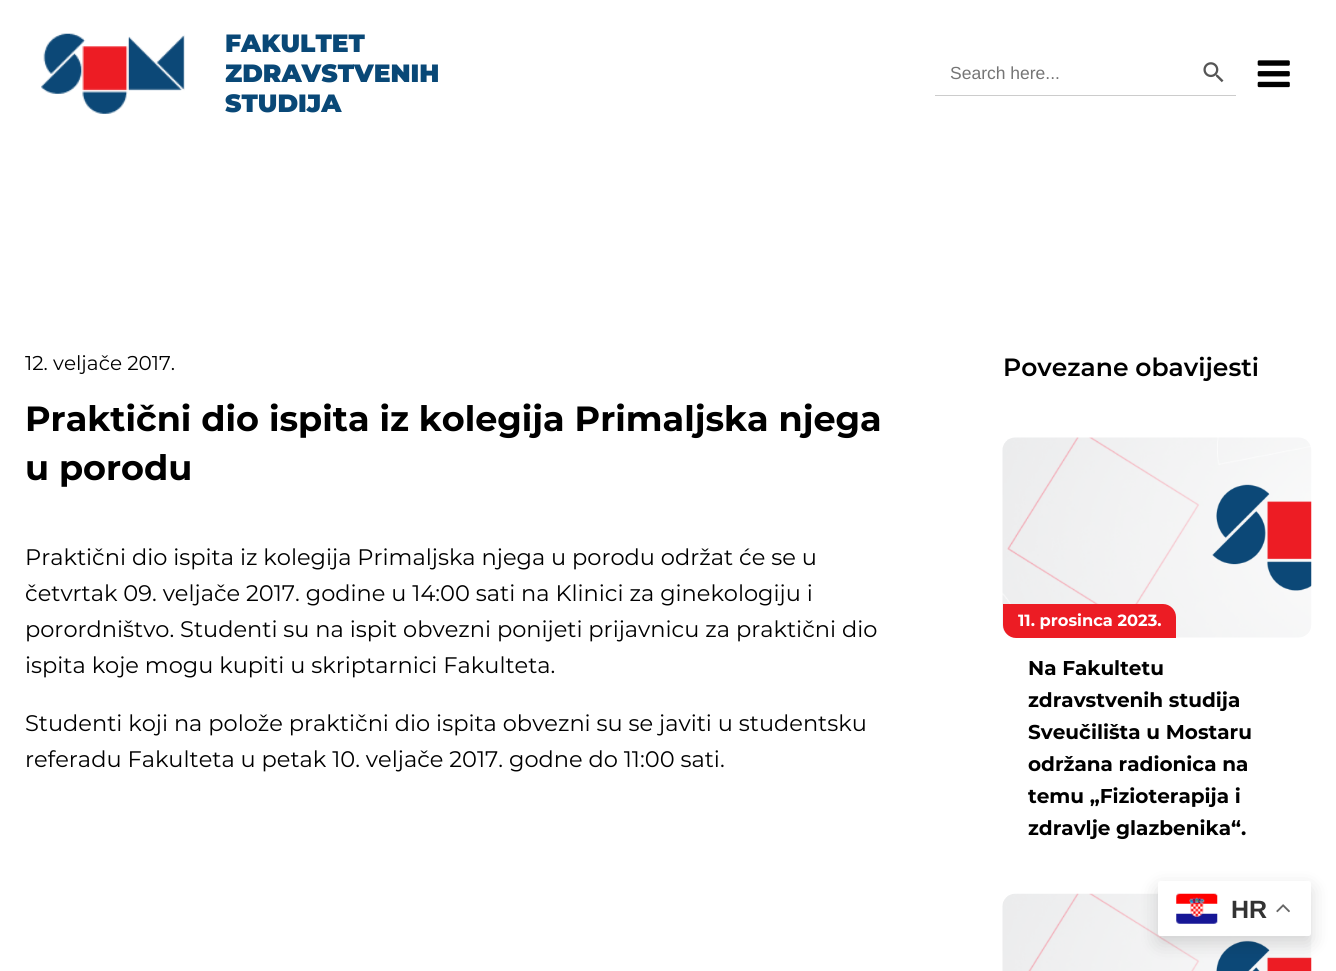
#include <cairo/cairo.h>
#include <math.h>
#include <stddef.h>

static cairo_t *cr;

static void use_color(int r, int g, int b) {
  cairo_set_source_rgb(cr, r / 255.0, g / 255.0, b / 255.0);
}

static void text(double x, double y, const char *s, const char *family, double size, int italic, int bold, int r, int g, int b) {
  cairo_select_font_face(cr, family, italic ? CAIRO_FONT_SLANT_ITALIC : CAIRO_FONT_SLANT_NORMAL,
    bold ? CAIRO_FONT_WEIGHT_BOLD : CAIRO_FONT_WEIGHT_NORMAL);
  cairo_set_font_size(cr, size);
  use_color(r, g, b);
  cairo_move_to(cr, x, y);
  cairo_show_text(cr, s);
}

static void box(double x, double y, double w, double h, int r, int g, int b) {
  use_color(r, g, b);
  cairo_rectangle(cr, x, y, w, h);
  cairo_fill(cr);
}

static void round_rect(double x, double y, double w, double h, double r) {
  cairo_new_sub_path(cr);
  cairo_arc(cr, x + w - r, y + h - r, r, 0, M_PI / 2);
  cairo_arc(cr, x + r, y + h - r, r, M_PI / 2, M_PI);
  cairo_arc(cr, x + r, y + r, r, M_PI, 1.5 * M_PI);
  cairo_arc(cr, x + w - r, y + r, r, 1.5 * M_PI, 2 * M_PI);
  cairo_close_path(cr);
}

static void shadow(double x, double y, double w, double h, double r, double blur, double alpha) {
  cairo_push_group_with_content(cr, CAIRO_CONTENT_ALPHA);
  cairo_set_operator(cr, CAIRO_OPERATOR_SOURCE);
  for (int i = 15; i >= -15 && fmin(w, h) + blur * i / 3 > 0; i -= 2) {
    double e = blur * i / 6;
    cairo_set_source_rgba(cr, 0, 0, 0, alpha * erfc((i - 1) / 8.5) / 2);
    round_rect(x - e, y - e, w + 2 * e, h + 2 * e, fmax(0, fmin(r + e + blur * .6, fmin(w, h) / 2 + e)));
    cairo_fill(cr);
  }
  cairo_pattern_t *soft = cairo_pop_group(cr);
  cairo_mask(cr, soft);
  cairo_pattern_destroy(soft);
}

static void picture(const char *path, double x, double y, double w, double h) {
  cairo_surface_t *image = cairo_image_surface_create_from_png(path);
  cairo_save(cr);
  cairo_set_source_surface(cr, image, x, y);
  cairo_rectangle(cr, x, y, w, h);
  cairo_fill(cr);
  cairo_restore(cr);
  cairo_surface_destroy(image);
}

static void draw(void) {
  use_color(255, 255, 255);
  cairo_paint(cr);
  picture("img_01.png", 41, 33, 144, 81);
  box(935, 95, 301, 1, 204, 204, 204);
  picture("img_02.png", 1203, 62, 21, 21);
  picture("img_03.png", 1257, 60, 33, 28);
  picture("img_04.png", 1002, 437, 310, 201);
  use_color(236, 28, 36);
  cairo_new_path(cr);
  cairo_move_to(cr, 1003, 604);
  cairo_line_to(cr, 1163, 604);
  cairo_curve_to(cr, 1170, 604, 1176, 610, 1176, 617);
  cairo_line_to(cr, 1176, 638);
  cairo_line_to(cr, 1016, 638);
  cairo_curve_to(cr, 1009, 638, 1003, 632, 1003, 625);
  cairo_close_path(cr);
  cairo_fill(cr);
  picture("img_05.png", 1002, 893, 310, 78);
  use_color(0, 0, 0);
  shadow(1158, 888, 153, 55, 2.5, 9.5, 0.15);
  use_color(255, 255, 255);
  round_rect(1158, 881, 153, 55, 2.5);
  cairo_fill(cr);
  picture("img_06.png", 1176, 893, 42, 31);
  picture("img_07.png", 1276, 904, 14, 9);
  text(225, 52, "FAKULTET", "Montserrat Black", 25, 0, 0, 9, 72, 119);
  text(225, 82, "ZDRAVSTVENIH", "Montserrat Black", 25, 0, 0, 9, 72, 119);
  text(225, 112, "STUDIJA", "Montserrat Black", 25, 0, 0, 9, 72, 119);
  text(950, 79, "Search here...", "Liberation Sans", 17.5, 0, 0, 117, 117, 117);
  text(25, 370, "12. veljače 2017.", "Montserrat", 20, 0, 0, 0, 0, 0);
  text(25, 431, "Praktični dio ispita iz kolegija Primaljska njega", "Montserrat", 35, 0, 1, 0, 0, 0);
  text(25, 480, "u porodu", "Montserrat", 35, 0, 1, 0, 0, 0);
  text(25, 565, "Praktični dio ispita iz kolegija Primaljska njega u porodu održat će se u", "Montserrat", 22.5, 0, 0, 0, 0, 0);
  text(25, 601, "četvrtak 09. veljače 2017. godine u 14:00 sati na Klinici za ginekologiju i", "Montserrat", 22.5, 0, 0, 0, 0, 0);
  text(25, 637, "porordništvo. Studenti su na ispit obvezni ponijeti prijavnicu za praktični dio", "Montserrat", 22.5, 0, 0, 0, 0, 0);
  text(25, 673, "ispita koje mogu kupiti u skriptarnici Fakulteta.", "Montserrat", 22.5, 0, 0, 0, 0, 0);
  text(25, 731, "Studenti koji na polože praktični dio ispita obvezni su se javiti u studentsku", "Montserrat", 22.5, 0, 0, 0, 0, 0);
  text(25, 767, "referadu Fakulteta u petak 10. veljače 2017. godne do 11:00 sati.", "Montserrat", 22.5, 0, 0, 0, 0, 0);
  text(1003, 376, "Povezane obavijesti", "Montserrat SemiBold", 25, 0, 0, 0, 0, 0);
  text(1018, 626, "11. prosinca 2023.", "Montserrat", 16.25, 0, 1, 255, 255, 255);
  text(1028, 675, "Na Fakultetu", "Montserrat", 20, 0, 1, 0, 0, 0);
  text(1028, 707, "zdravstvenih studija", "Montserrat", 20, 0, 1, 0, 0, 0);
  text(1028, 739, "Sveučilišta u Mostaru", "Montserrat", 20, 0, 1, 0, 0, 0);
  text(1028, 771, "održana radionica na", "Montserrat", 20, 0, 1, 0, 0, 0);
  text(1028, 803, "temu „Fizioterapija i", "Montserrat", 20, 0, 1, 0, 0, 0);
  text(1028, 835, "zdravlje glazbenika“.", "Montserrat", 20, 0, 1, 0, 0, 0);
  text(1231, 918, "HR", "Liberation Sans", 25, 0, 1, 51, 51, 51);
}

int main(void) {
  cairo_surface_t *surface = cairo_image_surface_create(CAIRO_FORMAT_RGB24, 1336, 971);
  cr = cairo_create(surface);
  cairo_font_options_t *options = cairo_font_options_create();
  cairo_font_options_set_hint_metrics(options, CAIRO_HINT_METRICS_OFF);
  cairo_font_options_set_hint_style(options, CAIRO_HINT_STYLE_NONE);
  cairo_set_font_options(cr, options);
  cairo_set_miter_limit(cr, 4);
  draw();
  cairo_surface_write_to_png(surface, "out.png");
  cairo_font_options_destroy(options);
  cairo_destroy(cr);
  cairo_surface_destroy(surface);
  return 0;
}
